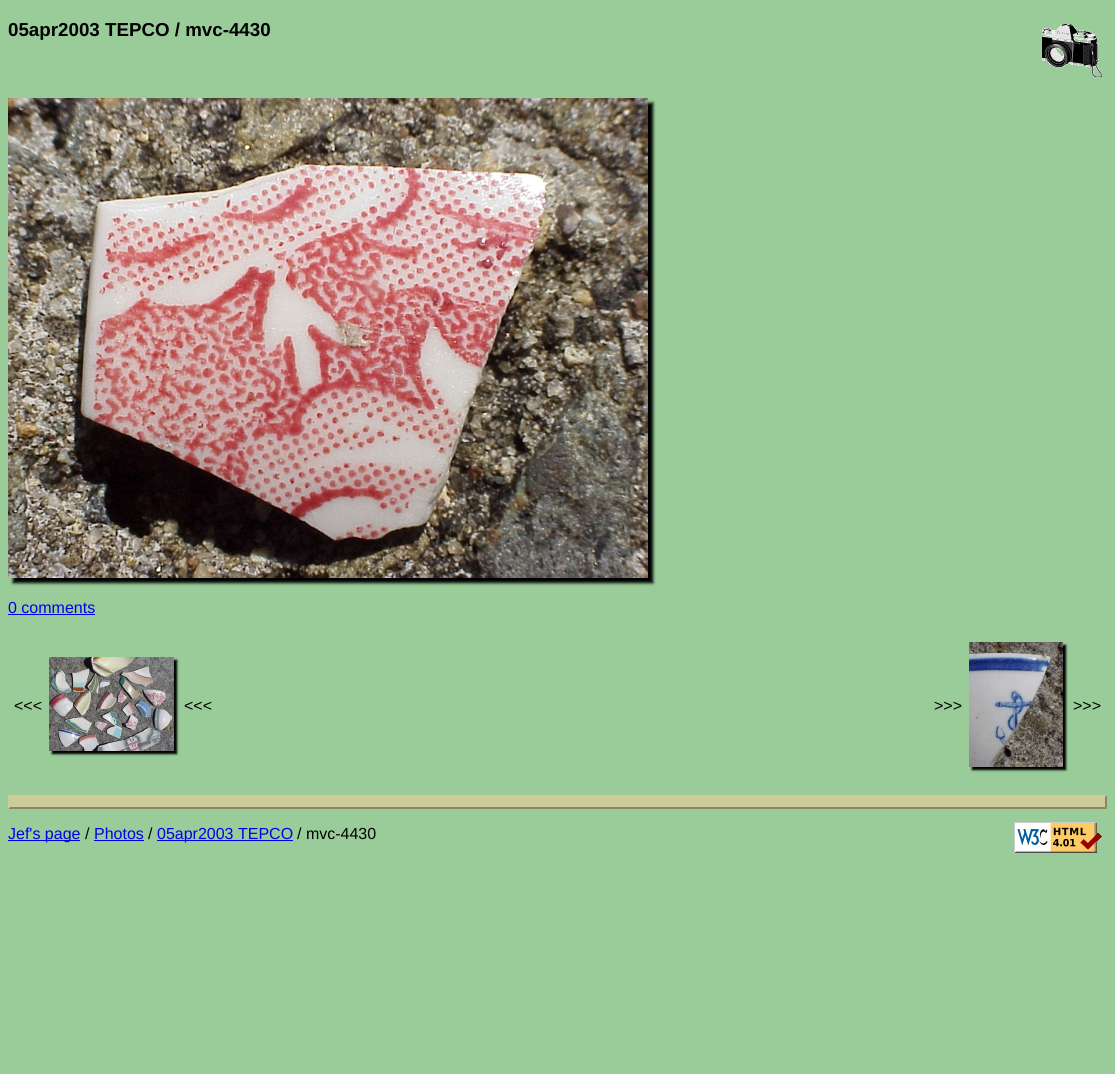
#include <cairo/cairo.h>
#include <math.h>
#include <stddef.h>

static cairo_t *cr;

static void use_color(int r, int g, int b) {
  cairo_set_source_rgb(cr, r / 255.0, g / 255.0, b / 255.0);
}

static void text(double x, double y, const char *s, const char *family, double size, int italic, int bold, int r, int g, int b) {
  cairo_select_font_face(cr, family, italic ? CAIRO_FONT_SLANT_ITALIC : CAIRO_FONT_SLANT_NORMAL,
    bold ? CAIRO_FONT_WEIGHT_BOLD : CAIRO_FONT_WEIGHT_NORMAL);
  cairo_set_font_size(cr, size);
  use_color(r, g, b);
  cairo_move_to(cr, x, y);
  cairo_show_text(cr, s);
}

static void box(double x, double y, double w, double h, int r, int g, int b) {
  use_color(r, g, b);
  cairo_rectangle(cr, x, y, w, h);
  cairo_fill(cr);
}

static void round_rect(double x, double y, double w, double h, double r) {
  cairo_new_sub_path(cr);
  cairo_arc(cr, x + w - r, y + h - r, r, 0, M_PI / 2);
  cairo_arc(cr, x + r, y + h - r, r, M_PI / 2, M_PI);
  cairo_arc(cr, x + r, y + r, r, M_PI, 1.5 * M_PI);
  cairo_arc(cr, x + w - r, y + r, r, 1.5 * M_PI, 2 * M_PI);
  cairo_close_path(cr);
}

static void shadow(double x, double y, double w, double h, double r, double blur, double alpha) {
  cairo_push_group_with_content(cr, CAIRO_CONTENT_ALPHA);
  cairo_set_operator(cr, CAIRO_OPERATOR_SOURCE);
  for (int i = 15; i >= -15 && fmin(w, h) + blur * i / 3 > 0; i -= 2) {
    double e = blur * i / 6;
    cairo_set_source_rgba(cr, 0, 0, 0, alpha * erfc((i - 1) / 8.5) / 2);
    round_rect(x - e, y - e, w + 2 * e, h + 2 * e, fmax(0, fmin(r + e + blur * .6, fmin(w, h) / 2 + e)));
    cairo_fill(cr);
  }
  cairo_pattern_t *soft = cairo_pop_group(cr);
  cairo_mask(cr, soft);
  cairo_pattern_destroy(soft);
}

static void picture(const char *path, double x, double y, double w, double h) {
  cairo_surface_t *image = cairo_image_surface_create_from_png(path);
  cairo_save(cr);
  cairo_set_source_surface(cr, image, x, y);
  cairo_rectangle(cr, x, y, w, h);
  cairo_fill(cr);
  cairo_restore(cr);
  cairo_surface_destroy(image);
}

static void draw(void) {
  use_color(153, 204, 153);
  cairo_paint(cr);
  picture("img_01.png", 1042, 24, 60, 53);
  use_color(0, 0, 0);
  shadow(13, 103, 640, 480, 0, 1.5, 1);
  picture("img_02.png", 8, 98, 640, 480);
  box(8, 614, 87, 1, 0, 0, 238);
  use_color(0, 0, 0);
  shadow(52, 660, 125, 94, 0, 1, 1);
  picture("img_03.png", 49, 657, 125, 94);
  shadow(972, 645, 94, 125, 0, 1, 1);
  picture("img_04.png", 969, 642, 94, 125);
  box(8, 795, 1099, 14, 204, 204, 153);
  use_color(136, 136, 102);
  cairo_new_path(cr);
  cairo_move_to(cr, 1107, 795);
  cairo_line_to(cr, 1107, 809);
  cairo_line_to(cr, 1105, 807);
  cairo_line_to(cr, 1105, 797);
  cairo_close_path(cr);
  cairo_fill(cr);
  cairo_new_path(cr);
  cairo_move_to(cr, 1107, 809);
  cairo_line_to(cr, 8, 809);
  cairo_line_to(cr, 10, 807);
  cairo_line_to(cr, 1105, 807);
  cairo_close_path(cr);
  cairo_fill(cr);
  use_color(204, 204, 153);
  cairo_new_path(cr);
  cairo_move_to(cr, 8, 809);
  cairo_line_to(cr, 8, 795);
  cairo_line_to(cr, 10, 797);
  cairo_line_to(cr, 10, 807);
  cairo_close_path(cr);
  cairo_fill(cr);
  box(8, 840, 72, 1, 0, 0, 238);
  box(94, 840, 50, 1, 0, 0, 238);
  box(157, 840, 136, 1, 0, 0, 238);
  picture("img_05.png", 1014, 822, 88, 31);
  text(8, 36, "05apr2003 TEPCO / mvc-4430", "Liberation Sans", 18.75, 0, 1, 0, 0, 0);
  text(8, 613, "0 comments", "Liberation Sans", 16, 0, 0, 0, 0, 238);
  text(14, 711, "<<<", "Liberation Sans", 16, 0, 0, 0, 0, 0);
  text(184, 711, "<<<", "Liberation Sans", 16, 0, 0, 0, 0, 0);
  text(934, 711, ">>>", "Liberation Sans", 16, 0, 0, 0, 0, 0);
  text(1073, 711, ">>>", "Liberation Sans", 16, 0, 0, 0, 0, 0);
  text(8, 839, "Jef's page", "Liberation Sans", 16, 0, 0, 0, 0, 238);
  text(85, 839, "/", "Liberation Sans", 16, 0, 0, 0, 0, 0);
  text(94, 839, "Photos", "Liberation Sans", 16, 0, 0, 0, 0, 238);
  text(148, 839, "/", "Liberation Sans", 16, 0, 0, 0, 0, 0);
  text(157, 839, "05apr2003 TEPCO", "Liberation Sans", 16, 0, 0, 0, 0, 238);
  text(297, 839, "/ mvc-4430", "Liberation Sans", 16, 0, 0, 0, 0, 0);
}

int main(void) {
  cairo_surface_t *surface = cairo_image_surface_create(CAIRO_FORMAT_RGB24, 1115, 1074);
  cr = cairo_create(surface);
  cairo_font_options_t *options = cairo_font_options_create();
  cairo_font_options_set_hint_metrics(options, CAIRO_HINT_METRICS_OFF);
  cairo_font_options_set_hint_style(options, CAIRO_HINT_STYLE_NONE);
  cairo_set_font_options(cr, options);
  cairo_set_miter_limit(cr, 4);
  draw();
  cairo_surface_write_to_png(surface, "out.png");
  cairo_font_options_destroy(options);
  cairo_destroy(cr);
  cairo_surface_destroy(surface);
  return 0;
}
